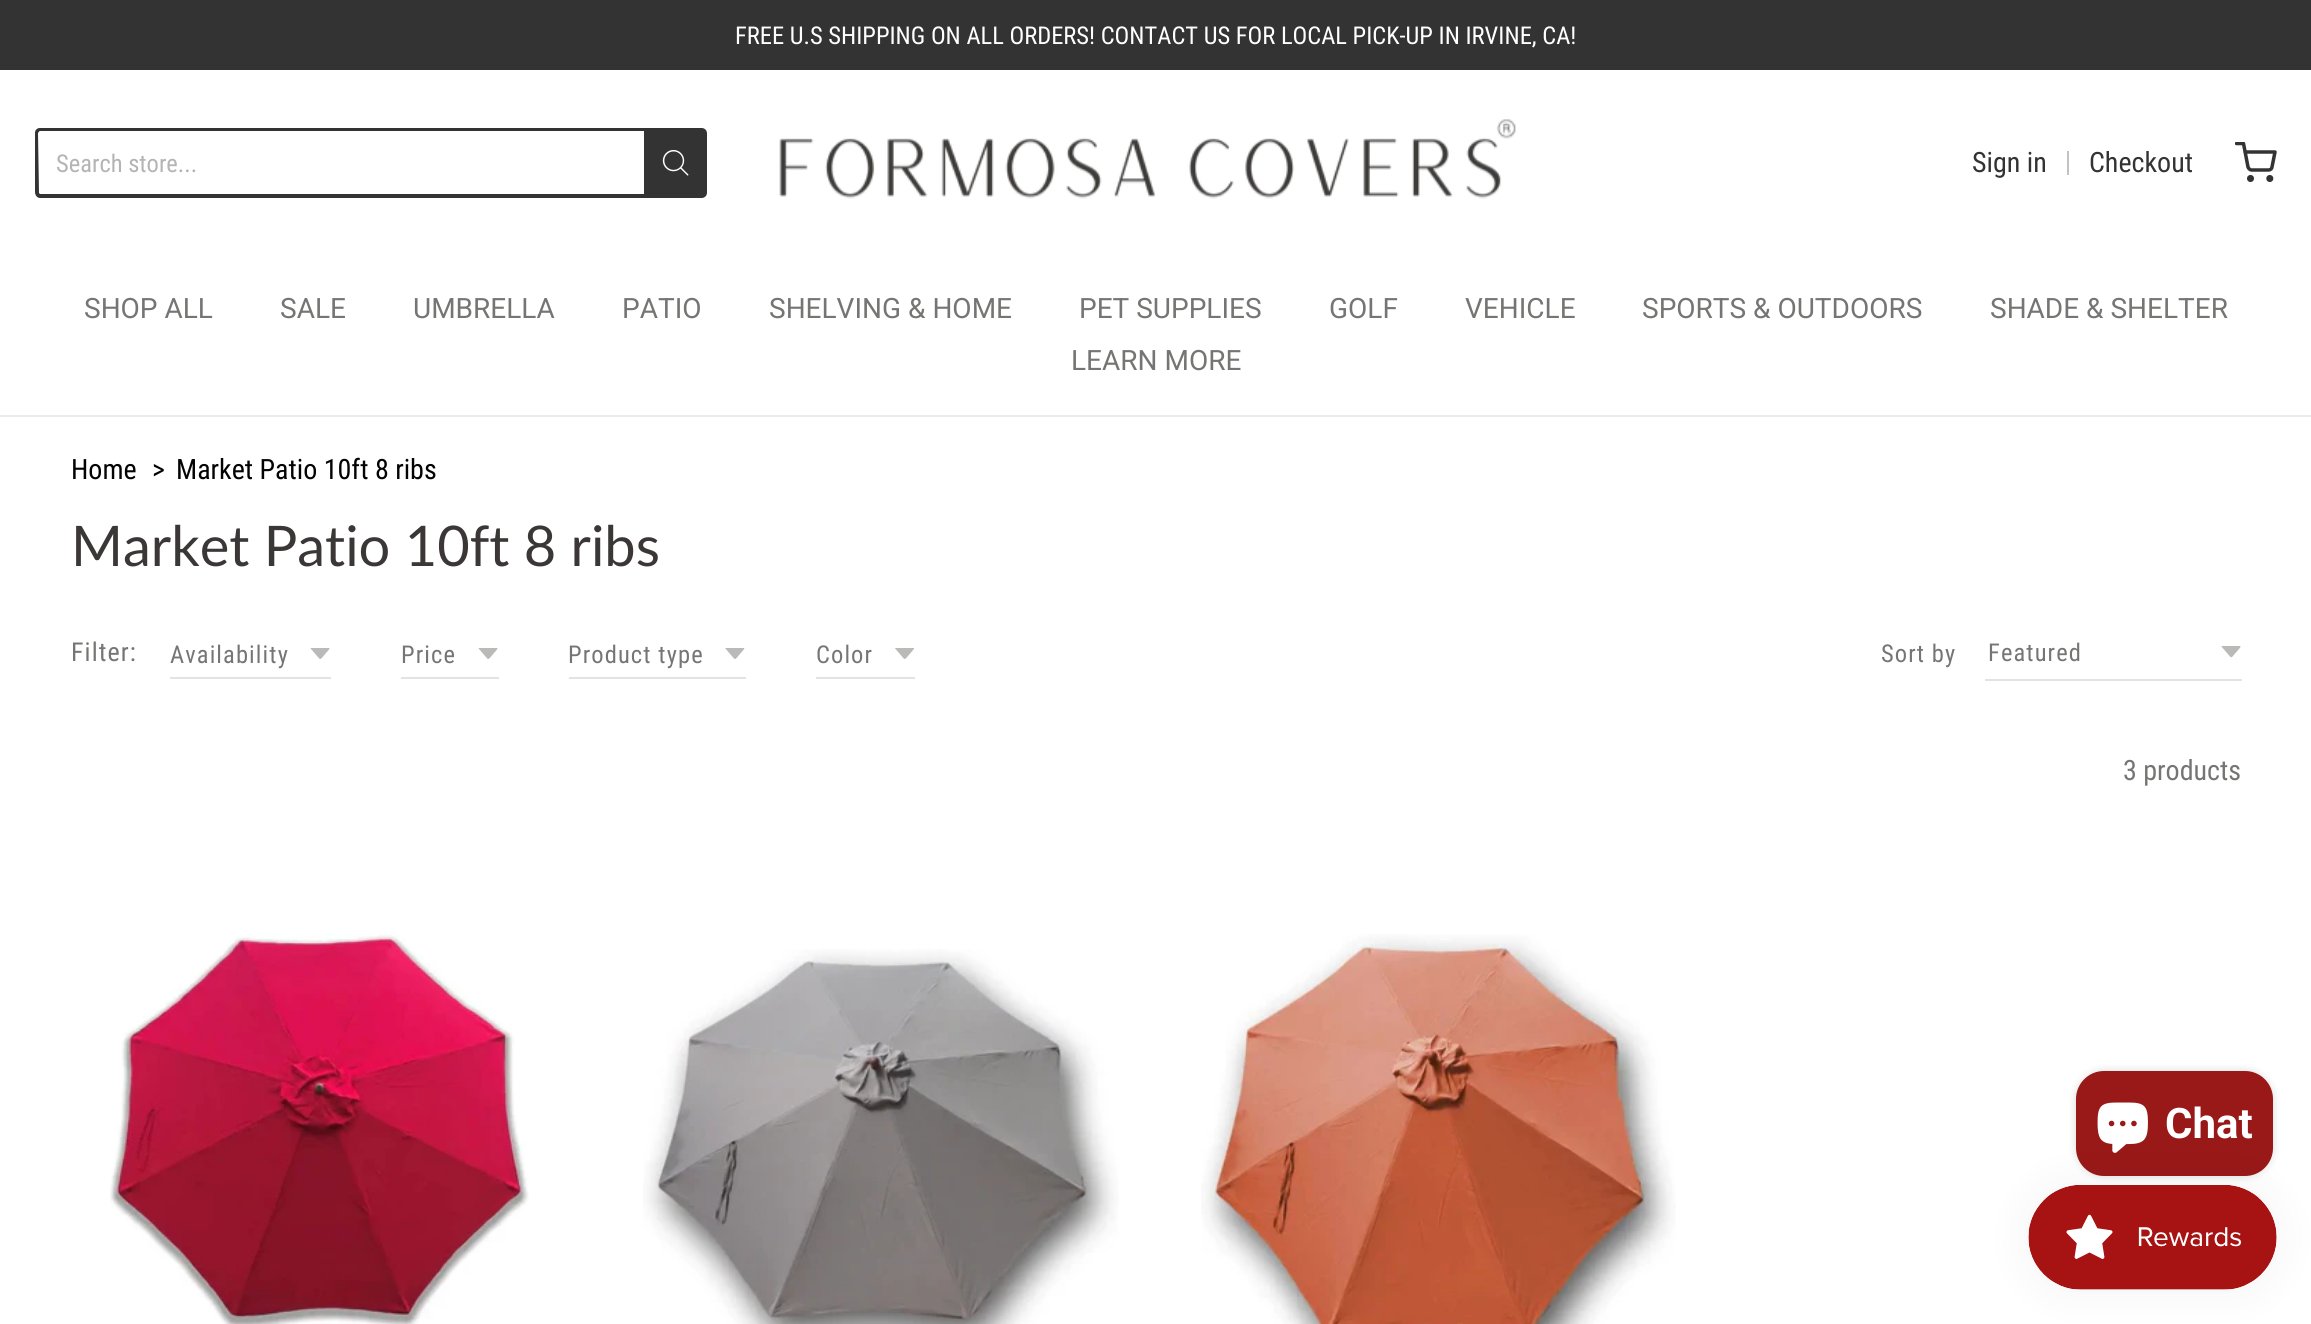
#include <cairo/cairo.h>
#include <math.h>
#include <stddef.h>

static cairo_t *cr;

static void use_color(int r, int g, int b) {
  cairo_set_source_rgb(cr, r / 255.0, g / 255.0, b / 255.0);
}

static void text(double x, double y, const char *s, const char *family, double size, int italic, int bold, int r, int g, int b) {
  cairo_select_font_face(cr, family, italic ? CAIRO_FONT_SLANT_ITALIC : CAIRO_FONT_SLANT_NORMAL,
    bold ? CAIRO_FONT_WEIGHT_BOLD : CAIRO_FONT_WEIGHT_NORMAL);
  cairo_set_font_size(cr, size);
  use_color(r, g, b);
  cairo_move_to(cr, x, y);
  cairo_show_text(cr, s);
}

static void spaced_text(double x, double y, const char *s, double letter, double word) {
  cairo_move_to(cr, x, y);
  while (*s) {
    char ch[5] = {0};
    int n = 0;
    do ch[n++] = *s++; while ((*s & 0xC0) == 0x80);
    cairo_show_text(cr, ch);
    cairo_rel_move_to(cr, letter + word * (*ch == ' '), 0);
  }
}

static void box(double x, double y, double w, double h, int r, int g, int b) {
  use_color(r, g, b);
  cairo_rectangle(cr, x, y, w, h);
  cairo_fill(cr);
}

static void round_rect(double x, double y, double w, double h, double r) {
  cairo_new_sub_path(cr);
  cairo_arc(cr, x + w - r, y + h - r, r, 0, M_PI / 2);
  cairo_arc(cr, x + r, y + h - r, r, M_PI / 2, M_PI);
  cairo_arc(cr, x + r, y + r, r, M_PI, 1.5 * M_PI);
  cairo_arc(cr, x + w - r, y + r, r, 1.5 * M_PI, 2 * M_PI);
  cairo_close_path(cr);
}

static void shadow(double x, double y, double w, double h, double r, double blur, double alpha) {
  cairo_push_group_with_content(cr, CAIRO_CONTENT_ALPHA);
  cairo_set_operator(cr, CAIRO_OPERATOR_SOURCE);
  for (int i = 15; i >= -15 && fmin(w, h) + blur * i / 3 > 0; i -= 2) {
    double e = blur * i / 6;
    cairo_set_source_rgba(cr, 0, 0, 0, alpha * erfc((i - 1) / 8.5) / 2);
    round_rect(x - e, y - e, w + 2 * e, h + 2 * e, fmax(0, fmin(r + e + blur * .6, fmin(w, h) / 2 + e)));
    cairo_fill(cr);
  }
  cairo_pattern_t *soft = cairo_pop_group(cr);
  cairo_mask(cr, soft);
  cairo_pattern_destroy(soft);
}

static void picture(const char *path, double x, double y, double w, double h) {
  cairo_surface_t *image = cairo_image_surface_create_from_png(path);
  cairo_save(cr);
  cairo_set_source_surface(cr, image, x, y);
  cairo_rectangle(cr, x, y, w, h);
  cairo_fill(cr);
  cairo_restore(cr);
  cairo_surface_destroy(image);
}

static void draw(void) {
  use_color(255, 255, 255);
  cairo_paint(cr);
  box(0, 415, 2311, 2, 235, 235, 235);
  box(0, 0, 2311, 70, 51, 51, 51);
  cairo_set_fill_rule(cr, CAIRO_FILL_RULE_EVEN_ODD);
  cairo_new_path(cr);
  cairo_move_to(cr, 40, 128);
  cairo_line_to(cr, 644, 128);
  cairo_line_to(cr, 644, 198);
  cairo_line_to(cr, 40, 198);
  cairo_curve_to(cr, 37, 198, 35, 195, 35, 192);
  cairo_line_to(cr, 35, 133);
  cairo_curve_to(cr, 35, 130, 37, 128, 40, 128);
  cairo_close_path(cr);
  cairo_move_to(cr, 40, 131);
  cairo_line_to(cr, 644, 131);
  cairo_line_to(cr, 644, 194);
  cairo_line_to(cr, 40, 194);
  cairo_line_to(cr, 39, 193);
  cairo_line_to(cr, 38, 133);
  cairo_curve_to(cr, 39, 132, 39, 131, 40, 131);
  cairo_close_path(cr);
  cairo_fill(cr);
  cairo_new_path(cr);
  cairo_move_to(cr, 646, 130);
  cairo_line_to(cr, 702, 130);
  cairo_curve_to(cr, 703.5, 130, 705, 131.5, 705, 133);
  cairo_line_to(cr, 705, 193);
  cairo_curve_to(cr, 705, 194.5, 703.5, 196, 702, 196);
  cairo_line_to(cr, 646, 196);
  cairo_close_path(cr);
  cairo_fill_preserve(cr);
  cairo_set_line_width(cr, 4);
  cairo_stroke(cr);
  picture("img_01.png", 662, 150, 27, 26);
  picture("img_02.png", 779, 119, 737, 80);
  box(2067, 151, 2, 24, 194, 194, 194);
  cairo_save(cr);
  cairo_set_fill_rule(cr, CAIRO_FILL_RULE_WINDING);
  cairo_rectangle(cr, 2235, 142, 42, 42);
  cairo_clip(cr);
  cairo_new_path(cr);
  cairo_move_to(cr, 2236.5, 143.5);
  cairo_line_to(cr, 2243.5, 143.5);
  cairo_line_to(cr, 2248, 167);
  cairo_curve_to(cr, 2248.5, 168.5, 2250, 170, 2251.5, 170);
  cairo_line_to(cr, 2268.5, 170);
  cairo_curve_to(cr, 2270.5, 170, 2272, 168.5, 2272, 167);
  cairo_line_to(cr, 2275, 152);
  cairo_line_to(cr, 2245, 152);
  use_color(51, 51, 51);
  cairo_set_line_width(cr, 3.5);
  cairo_set_line_cap(cr, CAIRO_LINE_CAP_ROUND);
  cairo_set_line_join(cr, CAIRO_LINE_JOIN_ROUND);
  cairo_stroke(cr);
  cairo_restore(cr);
  cairo_arc(cr, 2250.5, 178.5, 1.8, 0, 2 * M_PI);
  use_color(51, 51, 51);
  cairo_set_line_width(cr, 3.5);
  cairo_stroke(cr);
  cairo_arc(cr, 2269.8, 178.5, 1.8, 0, 2 * M_PI);
  cairo_stroke(cr);
  picture("img_03.png", 310, 648, 20, 11);
  box(170, 677, 161, 2, 225, 227, 228);
  picture("img_03.png", 478, 648, 20, 11);
  box(401, 677, 98, 2, 225, 227, 228);
  picture("img_04.png", 725, 648, 20, 11);
  box(569, 677, 177, 2, 225, 227, 228);
  picture("img_05.png", 895, 648, 19, 11);
  box(816, 677, 99, 2, 225, 227, 228);
  picture("img_06.png", 2221, 646, 20, 12);
  box(1985, 679, 257, 2, 225, 227, 228);
  picture("img_07.png", 110, 934, 419, 390);
  picture("img_08.png", 643, 949, 476, 375);
  picture("img_09.png", 1201, 934, 475, 390);
  use_color(0, 0, 0);
  shadow(2076, 1071, 197, 105, 28, 4.5, 0.15);
  use_color(153, 24, 24);
  round_rect(2076, 1071, 197, 105, 28);
  cairo_fill(cr);
  picture("img_10.png", 2097, 1102, 51, 51);
  use_color(0, 0, 0);
  shadow(2028, 1185, 249, 105, 52.5, 22, 0.05);
  picture("img_11.png", 2028, 1185, 249, 105);
  text(735, 44, "FREE U.S SHIPPING ON ALL ORDERS! CONTACT US FOR LOCAL PICK-UP IN IRVINE, CA!", "Roboto Condensed", 24.5, 0, 0, 255, 255, 255);
  text(56, 172, "Search store...", "Roboto Condensed", 24.5, 0, 0, 180, 180, 180);
  text(1972, 172, "Sign in", "Roboto Condensed", 28, 0, 0, 51, 51, 51);
  text(2089, 172, "Checkout", "Roboto Condensed", 28, 0, 0, 51, 51, 51);
  text(84, 318, "SHOP ALL", "Roboto", 28, 0, 0, 117, 117, 116);
  text(280, 318, "SALE", "Roboto", 28, 0, 0, 117, 117, 116);
  text(413, 318, "UMBRELLA", "Roboto", 28, 0, 0, 117, 117, 116);
  text(622, 318, "PATIO", "Roboto", 28, 0, 0, 117, 117, 116);
  text(769, 318, "SHELVING & HOME", "Roboto", 28, 0, 0, 117, 117, 116);
  text(1079, 318, "PET SUPPLIES", "Roboto", 28, 0, 0, 117, 117, 116);
  text(1329, 318, "GOLF", "Roboto", 28, 0, 0, 117, 117, 116);
  text(1465, 318, "VEHICLE", "Roboto", 28, 0, 0, 117, 117, 116);
  text(1642, 318, "SPORTS & OUTDOORS", "Roboto", 28, 0, 0, 117, 117, 116);
  text(1990, 318, "SHADE & SHELTER", "Roboto", 28, 0, 0, 117, 117, 116);
  text(1071, 370, "LEARN MORE", "Roboto", 28, 0, 0, 117, 117, 116);
  text(71, 479, "Home", "Roboto Condensed", 28, 0, 0, 3, 3, 3);
  text(152, 479, ">", "Roboto Condensed", 28, 0, 0, 3, 3, 3);
  text(176, 479, "Market Patio 10ft 8 ribs", "Roboto Condensed", 28, 0, 0, 3, 3, 3);
  text(71, 566, "Market Patio 10ft 8 ribs", "Lato", 56, 0, 0, 59, 55, 55);
  cairo_select_font_face(cr, "Roboto Condensed", CAIRO_FONT_SLANT_NORMAL, CAIRO_FONT_WEIGHT_NORMAL);
  cairo_set_font_size(cr, 26);
  use_color(117, 117, 116);
  spaced_text(71, 661, "Filter:", 1.1, 0);
  cairo_set_font_size(cr, 24.5);
  spaced_text(170, 663, "Availability", 1.1, 0);
  spaced_text(401, 663, "Price", 1.1, 0);
  spaced_text(568, 663, "Product type", 1.1, 0);
  spaced_text(816, 663, "Color", 1.1, 0);
  spaced_text(1881, 662, "Sort by", 1.1, 0);
  spaced_text(1988, 661, "Featured", 1.1, 0);
  text(2123, 780, "3 products", "Roboto Condensed", 28, 0, 0, 117, 117, 116);
  text(2165, 1138, "Chat", "Roboto", 42, 0, 1, 255, 255, 255);
}

int main(void) {
  cairo_surface_t *surface = cairo_image_surface_create(CAIRO_FORMAT_RGB24, 2311, 1324);
  cr = cairo_create(surface);
  cairo_font_options_t *options = cairo_font_options_create();
  cairo_font_options_set_hint_metrics(options, CAIRO_HINT_METRICS_OFF);
  cairo_font_options_set_hint_style(options, CAIRO_HINT_STYLE_NONE);
  cairo_set_font_options(cr, options);
  cairo_set_miter_limit(cr, 4);
  draw();
  cairo_surface_write_to_png(surface, "out.png");
  cairo_font_options_destroy(options);
  cairo_destroy(cr);
  cairo_surface_destroy(surface);
  return 0;
}
